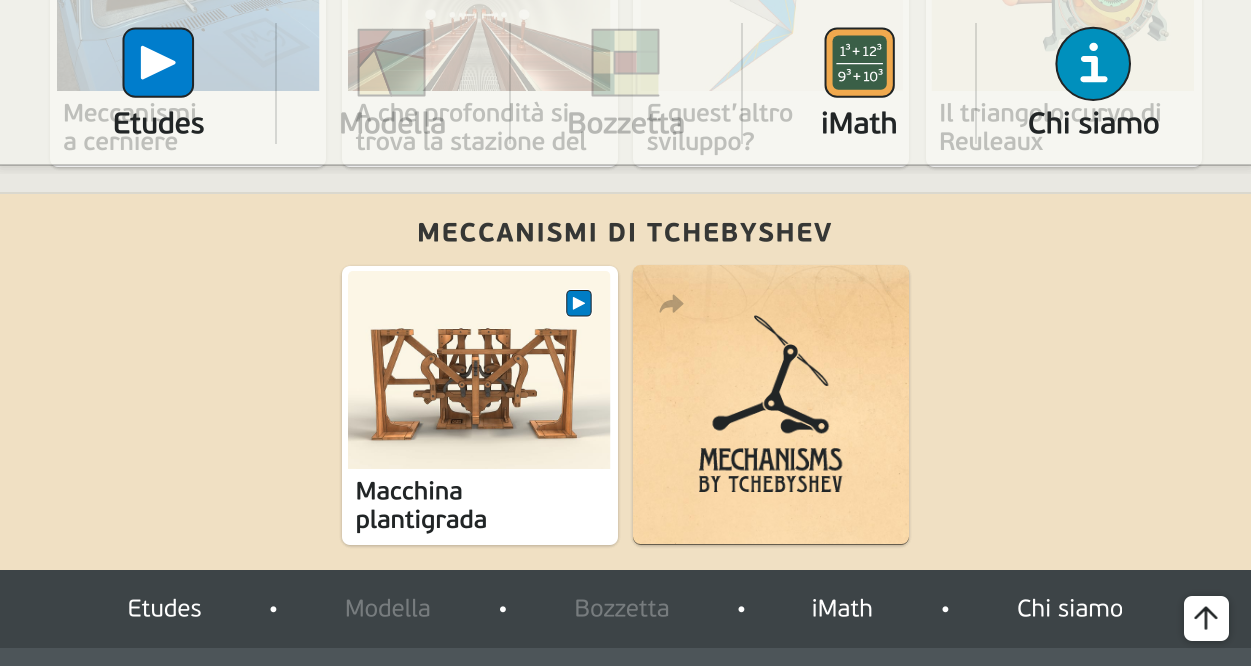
#include <cairo/cairo.h>
#include <math.h>
#include <stddef.h>

static cairo_t *cr;

static void use_color(int r, int g, int b) {
  cairo_set_source_rgb(cr, r / 255.0, g / 255.0, b / 255.0);
}

static void box(double x, double y, double w, double h, int r, int g, int b) {
  use_color(r, g, b);
  cairo_rectangle(cr, x, y, w, h);
  cairo_fill(cr);
}

static void round_rect(double x, double y, double w, double h, double r) {
  cairo_new_sub_path(cr);
  cairo_arc(cr, x + w - r, y + h - r, r, 0, M_PI / 2);
  cairo_arc(cr, x + r, y + h - r, r, M_PI / 2, M_PI);
  cairo_arc(cr, x + r, y + r, r, M_PI, 1.5 * M_PI);
  cairo_arc(cr, x + w - r, y + r, r, 1.5 * M_PI, 2 * M_PI);
  cairo_close_path(cr);
}

static void shadow(double x, double y, double w, double h, double r, double blur, double alpha) {
  cairo_push_group_with_content(cr, CAIRO_CONTENT_ALPHA);
  cairo_set_operator(cr, CAIRO_OPERATOR_SOURCE);
  for (int i = 15; i >= -15 && fmin(w, h) + blur * i / 3 > 0; i -= 2) {
    double e = blur * i / 6;
    cairo_set_source_rgba(cr, 0, 0, 0, alpha * erfc((i - 1) / 8.5) / 2);
    round_rect(x - e, y - e, w + 2 * e, h + 2 * e, fmax(0, fmin(r + e + blur * .6, fmin(w, h) / 2 + e)));
    cairo_fill(cr);
  }
  cairo_pattern_t *soft = cairo_pop_group(cr);
  cairo_mask(cr, soft);
  cairo_pattern_destroy(soft);
}

static void picture(const char *path, double x, double y, double w, double h) {
  cairo_surface_t *image = cairo_image_surface_create_from_png(path);
  cairo_save(cr);
  cairo_set_source_surface(cr, image, x, y);
  cairo_rectangle(cr, x, y, w, h);
  cairo_fill(cr);
  cairo_restore(cr);
  cairo_surface_destroy(image);
}

static void draw(void) {
  use_color(233, 232, 226);
  cairo_paint(cr);
  use_color(0, 0, 0);
  shadow(50, -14, 276, 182, 8, 2, 0.07);
  shadow(50, -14, 276, 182, 8, 2, 0.07);
  shadow(50, -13, 276, 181, 8, 1.5, 0.07);
  shadow(50, -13, 276, 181, 8, 1.5, 0.07);
  use_color(255, 255, 255);
  round_rect(50, -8, 276, 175, 8);
  cairo_fill(cr);
  picture("img_01.png", 57, 0, 263, 91);
  picture("img_02.png", 64, 103, 132, 19);
  picture("img_03.png", 64, 133, 114, 18);
  use_color(0, 0, 0);
  shadow(342, -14, 276, 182, 8, 2, 0.07);
  shadow(342, -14, 276, 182, 8, 2, 0.07);
  shadow(342, -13, 276, 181, 8, 1.5, 0.07);
  shadow(342, -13, 276, 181, 8, 1.5, 0.07);
  use_color(255, 255, 255);
  round_rect(342, -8, 276, 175, 8);
  cairo_fill(cr);
  picture("img_04.png", 348, 0, 263, 91);
  picture("img_05.png", 355, 101, 213, 26);
  picture("img_06.png", 355, 131, 232, 20);
  use_color(0, 0, 0);
  shadow(633, -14, 276, 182, 8, 2, 0.07);
  shadow(633, -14, 276, 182, 8, 2, 0.07);
  shadow(633, -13, 276, 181, 8, 1.5, 0.07);
  shadow(633, -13, 276, 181, 8, 1.5, 0.07);
  use_color(255, 255, 255);
  round_rect(633, -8, 276, 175, 8);
  cairo_fill(cr);
  picture("img_07.png", 640, 0, 263, 91);
  picture("img_08.png", 648, 103, 145, 24);
  picture("img_09.png", 647, 131, 107, 25);
  use_color(0, 0, 0);
  shadow(926, -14, 276, 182, 8, 2, 0.07);
  shadow(926, -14, 276, 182, 8, 2, 0.07);
  shadow(926, -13, 276, 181, 8, 1.5, 0.07);
  shadow(926, -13, 276, 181, 8, 1.5, 0.07);
  use_color(255, 255, 255);
  round_rect(926, -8, 276, 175, 8);
  cairo_fill(cr);
  picture("img_10.png", 931, 0, 263, 91);
  picture("img_11.png", 941, 103, 220, 25);
  picture("img_12.png", 940, 131, 103, 20);
  cairo_save(cr);
  cairo_rectangle(cr, 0, 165, 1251, 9);
  cairo_clip(cr);
  use_color(0, 0, 0);
  shadow(0, -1, 1251, 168, 0, 6.5, 0.15);
  cairo_restore(cr);
  cairo_set_source_rgba(cr, 0.953, 0.949, 0.925, 0.75);
  cairo_rectangle(cr, 0, 0, 1251, 165);
  cairo_fill(cr);
  cairo_set_source_rgba(cr, 0, 0, 0, 0.2);
  cairo_rectangle(cr, 0, 164, 1251, 2);
  cairo_fill(cr);
  picture("img_13.png", 122, 27, 73, 71);
  picture("img_14.png", 114, 111, 90, 23);
  cairo_set_source_rgba(cr, 0.129, 0.145, 0.149, 0.15);
  cairo_rectangle(cr, 275, 23, 2, 121);
  cairo_fill(cr);
  picture("img_15.png", 357, 28, 69, 69);
  picture("img_16.png", 341, 111, 104, 23);
  cairo_rectangle(cr, 509, 23, 2, 121);
  cairo_fill(cr);
  picture("img_17.png", 591, 28, 69, 69);
  picture("img_18.png", 569, 112, 115, 22);
  cairo_rectangle(cr, 741, 23, 2, 121);
  cairo_fill(cr);
  picture("img_19.png", 824, 27, 71, 71);
  picture("img_20.png", 822, 111, 74, 23);
  cairo_rectangle(cr, 975, 23, 2, 121);
  cairo_fill(cr);
  picture("img_21.png", 1055, 26, 76, 75);
  picture("img_22.png", 1029, 111, 130, 23);
  box(0, 194, 1251, 376, 240, 224, 195);
  box(0, 192, 1251, 2, 218, 216, 206);
  picture("img_23.png", 419, 222, 413, 20);
  use_color(0, 0, 0);
  shadow(342, 267, 276, 279, 8, 2, 0.07);
  shadow(342, 267, 276, 279, 8, 2, 0.07);
  shadow(342, 267, 276, 279, 8, 1.5, 0.07);
  shadow(342, 267, 276, 279, 8, 1.5, 0.07);
  use_color(255, 255, 255);
  round_rect(342, 266, 276, 279, 8);
  cairo_fill(cr);
  picture("img_24.png", 348, 271, 263, 198);
  picture("img_25.png", 565, 289, 28, 29);
  picture("img_26.png", 357, 481, 105, 19);
  picture("img_27.png", 357, 509, 129, 25);
  use_color(0, 0, 0);
  shadow(633, 267, 276, 279, 8, 2, 0.07);
  shadow(633, 267, 276, 279, 8, 2, 0.07);
  shadow(633, 267, 276, 279, 8, 1.5, 0.07);
  shadow(633, 267, 276, 279, 8, 1.5, 0.07);
  use_color(102, 93, 77);
  round_rect(633, 266, 276, 279, 8);
  cairo_fill(cr);
  picture("img_28.png", 633, 265, 276, 279);
  picture("img_29.png", 659, 294, 25, 19);
  box(0, 570, 1251, 78, 61, 68, 71);
  picture("img_30.png", 129, 598, 72, 19);
  picture("img_31.png", 270, 606, 7, 7);
  picture("img_32.png", 346, 598, 84, 19);
  picture("img_33.png", 500, 606, 6, 7);
  picture("img_34.png", 576, 599, 93, 18);
  picture("img_31.png", 738, 606, 7, 7);
  picture("img_35.png", 813, 598, 59, 19);
  picture("img_31.png", 942, 606, 7, 7);
  picture("img_36.png", 1018, 598, 104, 19);
  box(0, 648, 1251, 18, 77, 85, 89);
  use_color(0, 0, 0);
  shadow(1184, 597, 45, 45, 8, 4, 0.3);
  use_color(255, 255, 255);
  round_rect(1184, 596, 45, 45, 8);
  cairo_fill(cr);
  picture("img_37.png", 1194, 606, 24, 24);
}

int main(void) {
  cairo_surface_t *surface = cairo_image_surface_create(CAIRO_FORMAT_RGB24, 1251, 666);
  cr = cairo_create(surface);
  cairo_font_options_t *options = cairo_font_options_create();
  cairo_font_options_set_hint_metrics(options, CAIRO_HINT_METRICS_OFF);
  cairo_font_options_set_hint_style(options, CAIRO_HINT_STYLE_NONE);
  cairo_set_font_options(cr, options);
  cairo_set_miter_limit(cr, 4);
  draw();
  cairo_surface_write_to_png(surface, "out.png");
  cairo_font_options_destroy(options);
  cairo_destroy(cr);
  cairo_surface_destroy(surface);
  return 0;
}
